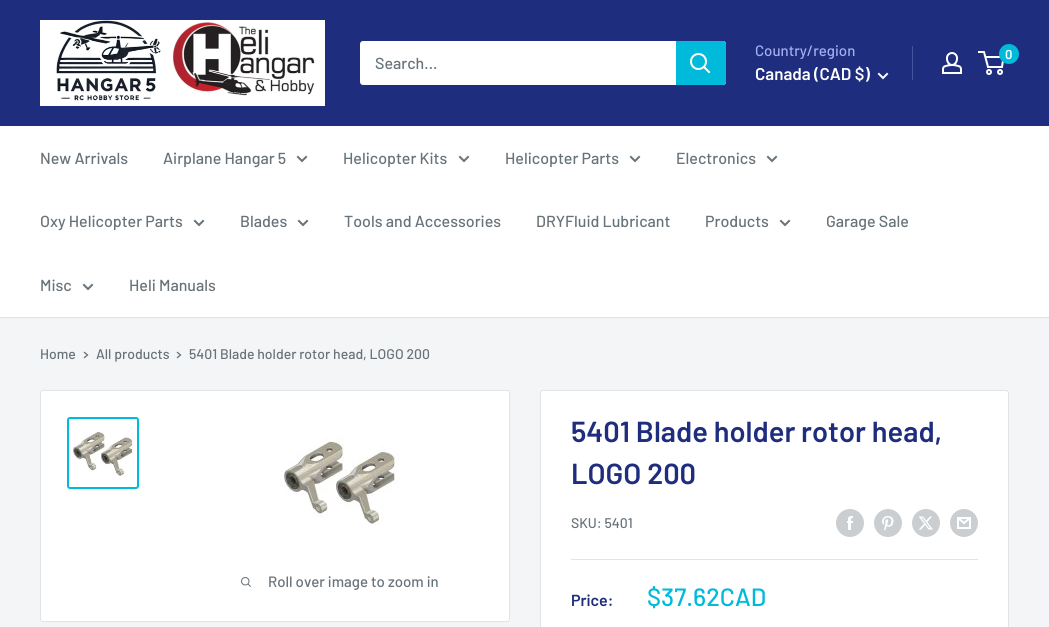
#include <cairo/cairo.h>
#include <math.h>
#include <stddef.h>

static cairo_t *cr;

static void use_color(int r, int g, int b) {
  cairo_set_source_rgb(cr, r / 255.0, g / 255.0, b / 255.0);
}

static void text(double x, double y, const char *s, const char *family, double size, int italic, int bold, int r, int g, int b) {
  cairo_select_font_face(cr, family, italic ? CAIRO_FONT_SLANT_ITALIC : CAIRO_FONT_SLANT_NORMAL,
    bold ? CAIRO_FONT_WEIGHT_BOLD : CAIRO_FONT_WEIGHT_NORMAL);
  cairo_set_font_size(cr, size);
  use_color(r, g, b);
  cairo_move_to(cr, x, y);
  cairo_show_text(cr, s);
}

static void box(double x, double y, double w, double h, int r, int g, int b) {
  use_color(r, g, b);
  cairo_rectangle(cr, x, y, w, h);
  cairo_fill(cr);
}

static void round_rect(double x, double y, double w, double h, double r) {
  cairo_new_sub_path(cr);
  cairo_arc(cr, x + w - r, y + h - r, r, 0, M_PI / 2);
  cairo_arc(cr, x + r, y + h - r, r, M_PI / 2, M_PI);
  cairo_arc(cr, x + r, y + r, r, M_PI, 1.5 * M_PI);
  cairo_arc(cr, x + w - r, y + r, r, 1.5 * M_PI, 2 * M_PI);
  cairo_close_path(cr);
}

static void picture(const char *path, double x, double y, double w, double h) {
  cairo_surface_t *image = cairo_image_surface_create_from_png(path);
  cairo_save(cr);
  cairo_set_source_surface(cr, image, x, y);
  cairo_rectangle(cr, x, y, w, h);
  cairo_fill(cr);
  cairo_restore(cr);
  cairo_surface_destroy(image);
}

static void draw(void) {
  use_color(243, 245, 246);
  cairo_paint(cr);
  box(0, 0, 1049, 126, 30, 45, 125);
  picture("img_01.png", 40, 20, 285, 86);
  use_color(255, 255, 255);
  round_rect(360, 41, 366, 44, 3);
  cairo_fill(cr);
  use_color(0, 186, 219);
  cairo_new_path(cr);
  cairo_move_to(cr, 676, 41);
  cairo_line_to(cr, 723, 41);
  cairo_curve_to(cr, 724.5, 41, 726, 42.5, 726, 44);
  cairo_line_to(cr, 726, 82);
  cairo_curve_to(cr, 726, 83.5, 724.5, 85, 723, 85);
  cairo_line_to(cr, 676, 85);
  cairo_close_path(cr);
  cairo_fill(cr);
  cairo_new_path(cr);
  cairo_move_to(cr, 709, 72);
  cairo_line_to(cr, 704, 67);
  use_color(255, 255, 255);
  cairo_set_line_cap(cr, CAIRO_LINE_CAP_SQUARE);
  cairo_stroke(cr);
  cairo_arc(cr, 698.5, 61.5, 7.5, 0, 2 * M_PI);
  cairo_set_line_cap(cr, CAIRO_LINE_CAP_BUTT);
  cairo_stroke(cr);
  cairo_new_path(cr);
  cairo_move_to(cr, 887, 74);
  cairo_line_to(cr, 883, 78);
  cairo_line_to(cr, 879, 74);
  cairo_set_line_cap(cr, CAIRO_LINE_CAP_SQUARE);
  cairo_stroke(cr);
  box(912, 46, 1, 34, 70, 84, 159);
  picture("img_02.png", 942, 52, 20, 22);
  cairo_arc(cr, 989, 72, 2, 0, 2 * M_PI);
  use_color(255, 255, 255);
  cairo_set_line_cap(cr, CAIRO_LINE_CAP_BUTT);
  cairo_stroke(cr);
  cairo_arc(cr, 1000, 72, 2, 0, 2 * M_PI);
  cairo_stroke(cr);
  cairo_new_path(cr);
  cairo_move_to(cr, 985.5, 57);
  cairo_line_to(cr, 1003.5, 57);
  cairo_line_to(cr, 1002, 67);
  cairo_line_to(cr, 988, 67);
  cairo_line_to(cr, 984, 52);
  cairo_line_to(cr, 978, 52);
  cairo_stroke(cr);
  use_color(0, 186, 219);
  cairo_arc(cr, 1009, 54, 10, 0, 2 * M_PI);
  cairo_fill(cr);
  box(0, 126, 1049, 191, 255, 255, 255);
  box(0, 317, 1049, 1, 225, 227, 228);
  cairo_new_path(cr);
  cairo_move_to(cr, 306, 157);
  cairo_line_to(cr, 302, 161);
  cairo_line_to(cr, 298, 157);
  use_color(103, 114, 121);
  cairo_set_line_cap(cr, CAIRO_LINE_CAP_SQUARE);
  cairo_stroke(cr);
  cairo_new_path(cr);
  cairo_move_to(cr, 468, 157);
  cairo_line_to(cr, 464, 161);
  cairo_line_to(cr, 460, 157);
  cairo_stroke(cr);
  cairo_new_path(cr);
  cairo_move_to(cr, 639, 157);
  cairo_line_to(cr, 635, 161);
  cairo_line_to(cr, 631, 157);
  cairo_stroke(cr);
  cairo_new_path(cr);
  cairo_move_to(cr, 776, 157);
  cairo_line_to(cr, 772, 161);
  cairo_line_to(cr, 768, 157);
  cairo_stroke(cr);
  cairo_new_path(cr);
  cairo_move_to(cr, 203, 221);
  cairo_line_to(cr, 199, 225);
  cairo_line_to(cr, 195, 221);
  cairo_stroke(cr);
  cairo_new_path(cr);
  cairo_move_to(cr, 307, 221);
  cairo_line_to(cr, 303, 225);
  cairo_line_to(cr, 299, 221);
  cairo_stroke(cr);
  cairo_new_path(cr);
  cairo_move_to(cr, 789, 221);
  cairo_line_to(cr, 785, 225);
  cairo_line_to(cr, 781, 221);
  cairo_stroke(cr);
  cairo_new_path(cr);
  cairo_move_to(cr, 92, 285);
  cairo_line_to(cr, 88, 289);
  cairo_line_to(cr, 84, 285);
  cairo_stroke(cr);
  cairo_new_path(cr);
  cairo_move_to(cr, 84.5, 352.5);
  cairo_line_to(cr, 87.5, 355);
  cairo_line_to(cr, 84.5, 357.5);
  cairo_set_line_width(cr, 1.3);
  cairo_stroke(cr);
  cairo_new_path(cr);
  cairo_move_to(cr, 177.5, 352.5);
  cairo_line_to(cr, 180.5, 355);
  cairo_line_to(cr, 177.5, 357.5);
  cairo_stroke(cr);
  use_color(255, 255, 255);
  round_rect(40.5, 390.5, 469, 231, 2.5);
  cairo_fill_preserve(cr);
  use_color(225, 227, 228);
  cairo_set_line_width(cr, 1);
  cairo_set_line_cap(cr, CAIRO_LINE_CAP_BUTT);
  cairo_stroke(cr);
  round_rect(68, 418, 70, 70, 2);
  use_color(0, 186, 219);
  cairo_set_line_width(cr, 2);
  cairo_stroke(cr);
  picture("img_03.png", 73, 430, 62, 47);
  picture("img_04.png", 284, 437, 115, 88);
  picture("img_05.png", 241, 577, 10, 10);
  use_color(255, 255, 255);
  round_rect(540.5, 390.5, 468, 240, 2.5);
  cairo_fill_preserve(cr);
  use_color(225, 227, 228);
  cairo_set_line_width(cr, 1);
  cairo_stroke(cr);
  picture("img_06.png", 836, 509, 28, 28);
  picture("img_07.png", 874, 509, 28, 28);
  picture("img_08.png", 912, 509, 28, 28);
  picture("img_09.png", 950, 509, 28, 28);
  box(571, 559, 407, 1, 225, 227, 228);
  text(375, 69, "Search...", "Barlow Medium", 16, 0, 0, 103, 114, 121);
  text(755, 56, "Country/region", "Barlow Medium", 15, 0, 0, 163, 175, 239);
  text(755, 80, "Canada (CAD $)", "Barlow SemiBold", 17, 0, 0, 255, 255, 255);
  text(1005, 59, "0", "Barlow SemiBold", 13, 0, 0, 255, 255, 255);
  text(40, 164, "New Arrivals", "Barlow Medium", 16, 0, 0, 103, 114, 121);
  text(163, 164, "Airplane Hangar 5", "Barlow Medium", 16, 0, 0, 103, 114, 121);
  text(343, 164, "Helicopter Kits", "Barlow Medium", 16, 0, 0, 103, 114, 121);
  text(505, 164, "Helicopter Parts", "Barlow Medium", 16, 0, 0, 103, 114, 121);
  text(676, 164, "Electronics", "Barlow Medium", 16, 0, 0, 103, 114, 121);
  text(40, 227, "Oxy Helicopter Parts", "Barlow Medium", 16, 0, 0, 103, 114, 121);
  text(240, 227, "Blades", "Barlow Medium", 16, 0, 0, 103, 114, 121);
  text(344, 227, "Tools and Accessories", "Barlow Medium", 16, 0, 0, 103, 114, 121);
  text(536, 227, "DRYFluid Lubricant", "Barlow Medium", 16, 0, 0, 103, 114, 121);
  text(705, 227, "Products", "Barlow Medium", 16, 0, 0, 103, 114, 121);
  text(826, 227, "Garage Sale", "Barlow Medium", 16, 0, 0, 103, 114, 121);
  text(40, 291, "Misc", "Barlow Medium", 16, 0, 0, 103, 114, 121);
  text(129, 291, "Heli Manuals", "Barlow Medium", 16, 0, 0, 103, 114, 121);
  text(40, 359, "Home", "Barlow Medium", 14, 0, 0, 103, 114, 121);
  text(96, 359, "All products", "Barlow Medium", 14, 0, 0, 103, 114, 121);
  text(189, 359, "5401 Blade holder rotor head, LOGO 200", "Barlow Medium", 14, 0, 0, 103, 114, 121);
  text(268, 587, "Roll over image to zoom in", "Barlow Medium", 15, 0, 0, 103, 114, 121);
  text(571, 442, "5401 Blade holder rotor head,", "Barlow SemiBold", 29, 0, 0, 30, 45, 125);
  text(571, 484, "LOGO 200", "Barlow SemiBold", 29, 0, 0, 30, 45, 125);
  text(571, 528, "SKU: 5401", "Barlow Medium", 14, 0, 0, 103, 114, 121);
  text(571, 606, "Price:", "Barlow SemiBold", 16, 0, 0, 30, 45, 125);
  text(647, 606, "$37.62CAD", "Barlow Medium", 25, 0, 0, 0, 186, 219);
}

int main(void) {
  cairo_surface_t *surface = cairo_image_surface_create(CAIRO_FORMAT_RGB24, 1049, 627);
  cr = cairo_create(surface);
  cairo_font_options_t *options = cairo_font_options_create();
  cairo_font_options_set_hint_metrics(options, CAIRO_HINT_METRICS_OFF);
  cairo_font_options_set_hint_style(options, CAIRO_HINT_STYLE_NONE);
  cairo_set_font_options(cr, options);
  cairo_set_miter_limit(cr, 4);
  draw();
  cairo_surface_write_to_png(surface, "out.png");
  cairo_font_options_destroy(options);
  cairo_destroy(cr);
  cairo_surface_destroy(surface);
  return 0;
}
